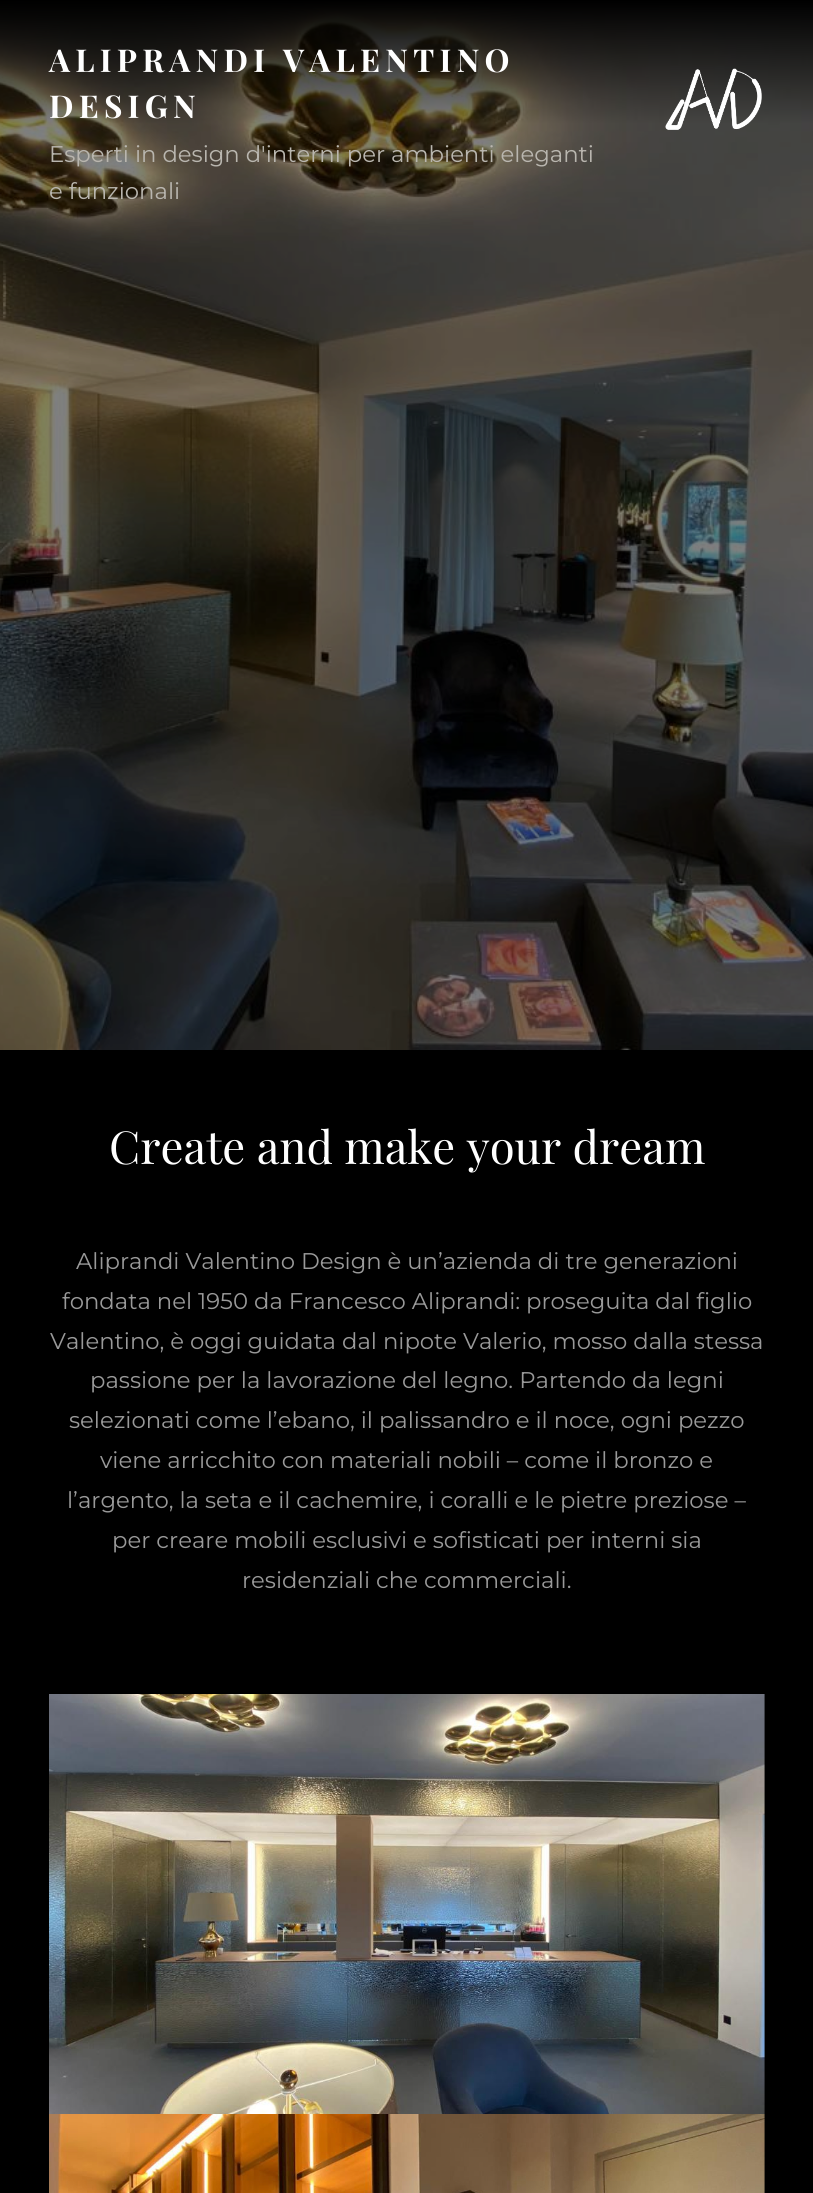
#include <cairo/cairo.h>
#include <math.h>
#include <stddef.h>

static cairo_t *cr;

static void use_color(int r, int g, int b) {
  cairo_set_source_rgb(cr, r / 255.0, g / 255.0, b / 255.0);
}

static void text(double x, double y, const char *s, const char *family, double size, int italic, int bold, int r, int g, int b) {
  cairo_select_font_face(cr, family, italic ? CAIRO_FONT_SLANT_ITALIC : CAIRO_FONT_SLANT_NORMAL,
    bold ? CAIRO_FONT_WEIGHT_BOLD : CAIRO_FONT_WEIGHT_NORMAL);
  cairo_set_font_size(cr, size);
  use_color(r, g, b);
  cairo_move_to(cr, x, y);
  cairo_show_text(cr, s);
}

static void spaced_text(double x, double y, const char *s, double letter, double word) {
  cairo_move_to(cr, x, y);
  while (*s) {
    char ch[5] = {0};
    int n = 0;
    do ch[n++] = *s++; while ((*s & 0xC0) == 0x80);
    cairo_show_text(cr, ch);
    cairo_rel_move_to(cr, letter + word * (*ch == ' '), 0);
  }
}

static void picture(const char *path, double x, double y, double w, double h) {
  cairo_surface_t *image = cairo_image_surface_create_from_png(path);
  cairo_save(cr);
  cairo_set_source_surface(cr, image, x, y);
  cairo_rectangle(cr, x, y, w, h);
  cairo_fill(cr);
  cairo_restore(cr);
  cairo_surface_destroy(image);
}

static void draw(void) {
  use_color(0, 0, 0);
  cairo_paint(cr);
  picture("img_01.png", 0, 0, 813, 1050);
  picture("img_02.png", 665, 68, 97, 62);
  picture("img_03.png", 49, 1694, 716, 420);
  picture("img_04.png", 49, 2114, 716, 79);
  cairo_select_font_face(cr, "Playfair Display", CAIRO_FONT_SLANT_NORMAL, CAIRO_FONT_WEIGHT_BOLD);
  cairo_set_font_size(cr, 31.5);
  use_color(255, 255, 255);
  spaced_text(49, 72, "ALIPRANDI VALENTINO", 5.25, 0);
  spaced_text(49, 118, "DESIGN", 5.25, 0);
  text(49, 162, "Esperti in design d'interni per ambienti eleganti", "Montserrat", 22.75, 0, 0, 185, 182, 175);
  text(49, 199, "e funzionali", "Montserrat", 22.75, 0, 0, 185, 182, 175);
  text(109, 1164, "Create and make your dream", "Playfair Display", 45.5, 0, 0, 255, 255, 255);
  text(76, 1269, "Aliprandi Valentino Design è un’azienda di tre generazioni", "Montserrat", 22.75, 0, 0, 153, 153, 153);
  text(62, 1309, "fondata nel 1950 da Francesco Aliprandi: proseguita dal figlio", "Montserrat", 22.75, 0, 0, 153, 153, 153);
  text(50, 1349, "Valentino, è oggi guidata dal nipote Valerio, mosso dalla stessa", "Montserrat", 22.75, 0, 0, 153, 153, 153);
  text(90, 1388, "passione per la lavorazione del legno. Partendo da legni", "Montserrat", 22.75, 0, 0, 153, 153, 153);
  text(69, 1428, "selezionati come l’ebano, il palissandro e il noce, ogni pezzo", "Montserrat", 22.75, 0, 0, 153, 153, 153);
  text(100, 1468, "viene arricchito con materiali nobili – come il bronzo e", "Montserrat", 22.75, 0, 0, 153, 153, 153);
  text(67, 1508, "l’argento, la seta e il cachemire, i coralli e le pietre preziose –", "Montserrat", 22.75, 0, 0, 153, 153, 153);
  text(112, 1548, "per creare mobili esclusivi e sofisticati per interni sia", "Montserrat", 22.75, 0, 0, 153, 153, 153);
  text(242, 1588, "residenziali che commerciali.", "Montserrat", 22.75, 0, 0, 153, 153, 153);
}

int main(void) {
  cairo_surface_t *surface = cairo_image_surface_create(CAIRO_FORMAT_RGB24, 813, 2193);
  cr = cairo_create(surface);
  cairo_font_options_t *options = cairo_font_options_create();
  cairo_font_options_set_hint_metrics(options, CAIRO_HINT_METRICS_OFF);
  cairo_font_options_set_hint_style(options, CAIRO_HINT_STYLE_NONE);
  cairo_set_font_options(cr, options);
  cairo_set_miter_limit(cr, 4);
  draw();
  cairo_surface_write_to_png(surface, "out.png");
  cairo_font_options_destroy(options);
  cairo_destroy(cr);
  cairo_surface_destroy(surface);
  return 0;
}
